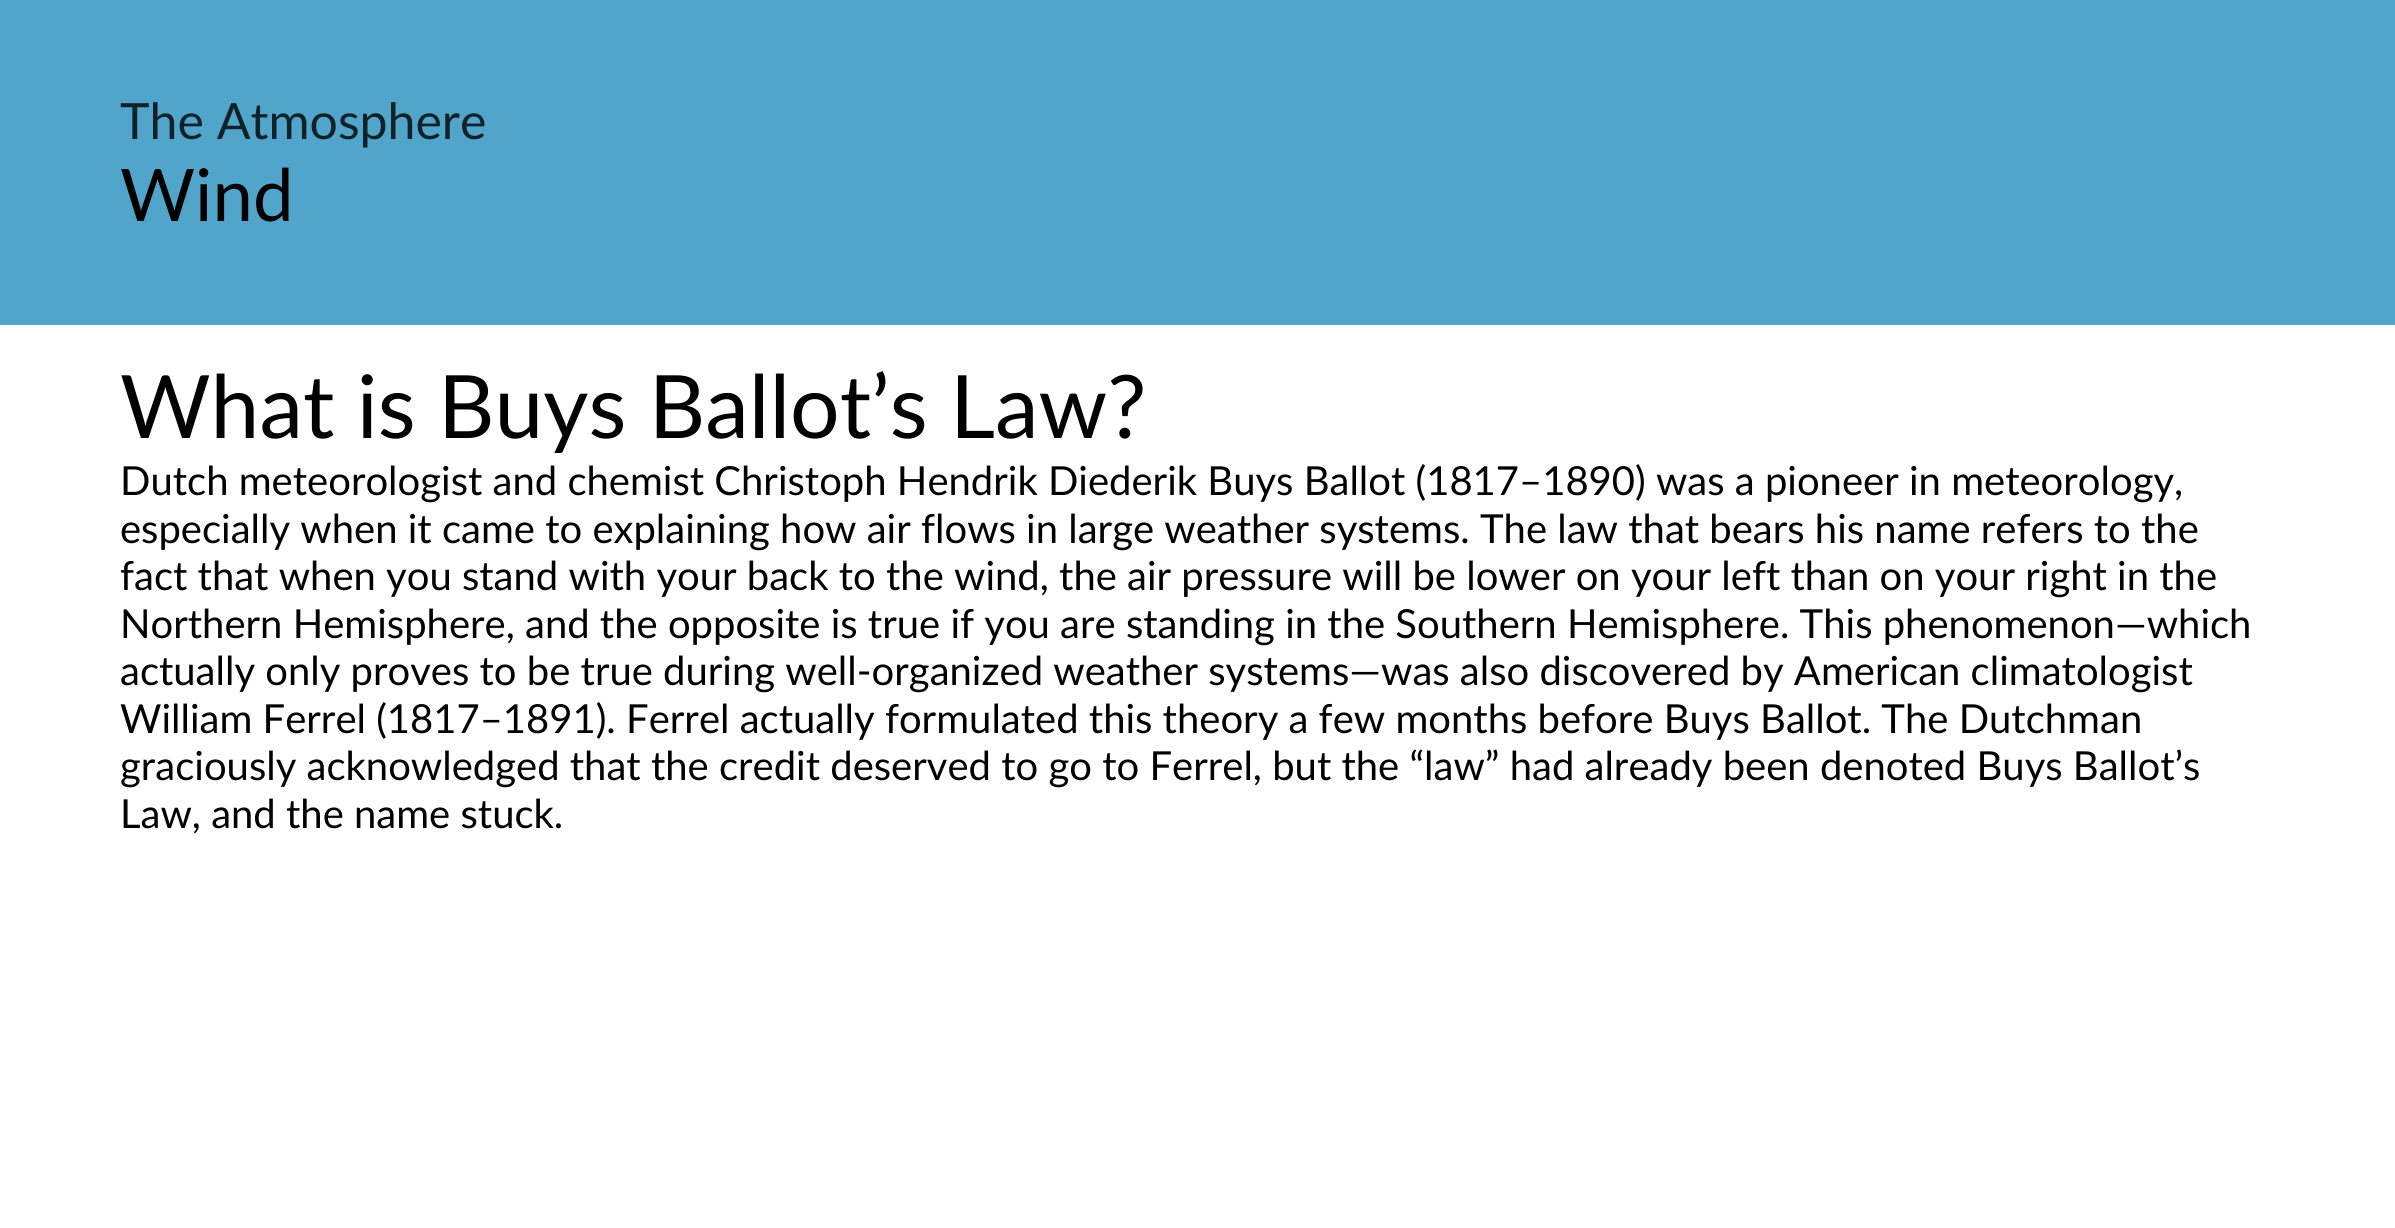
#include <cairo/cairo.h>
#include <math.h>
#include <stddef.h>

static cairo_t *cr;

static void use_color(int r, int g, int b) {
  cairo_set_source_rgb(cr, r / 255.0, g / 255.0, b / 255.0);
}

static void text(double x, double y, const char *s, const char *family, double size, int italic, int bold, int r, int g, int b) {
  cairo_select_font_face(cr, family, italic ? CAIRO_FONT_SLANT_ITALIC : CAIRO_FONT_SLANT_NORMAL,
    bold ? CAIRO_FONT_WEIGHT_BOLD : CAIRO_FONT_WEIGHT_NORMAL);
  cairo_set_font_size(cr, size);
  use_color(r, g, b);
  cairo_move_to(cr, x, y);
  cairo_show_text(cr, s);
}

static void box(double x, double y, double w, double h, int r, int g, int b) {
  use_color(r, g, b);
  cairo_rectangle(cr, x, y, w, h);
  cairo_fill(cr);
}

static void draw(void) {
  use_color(255, 255, 255);
  cairo_paint(cr);
  box(0, 0, 2395, 325, 81, 165, 202);
  text(120, 139, "The Atmosphere", "Lato", 50, 0, 0, 16, 33, 40);
  text(120, 221, "Wind", "Lato", 72.5, 0, 0, 0, 0, 0);
  text(120, 438, "What is Buys Ballot’s Law?", "Lato", 87.5, 0, 0, 0, 0, 0);
  text(120, 495, "Dutch meteorologist and chemist Christoph Hendrik Diederik Buys Ballot (1817–1890) was a pioneer in meteorology,", "Lato", 40, 0, 0, 0, 0, 0);
  text(120, 543, "especially when it came to explaining how air flows in large weather systems. The law that bears his name refers to the", "Lato", 40, 0, 0, 0, 0, 0);
  text(120, 590, "fact that when you stand with your back to the wind, the air pressure will be lower on your left than on your right in the", "Lato", 40, 0, 0, 0, 0, 0);
  text(120, 638, "Northern Hemisphere, and the opposite is true if you are standing in the Southern Hemisphere. This phenomenon—which", "Lato", 40, 0, 0, 0, 0, 0);
  text(120, 685, "actually only proves to be true during well-organized weather systems—was also discovered by American climatologist", "Lato", 40, 0, 0, 0, 0, 0);
  text(120, 733, "William Ferrel (1817–1891). Ferrel actually formulated this theory a few months before Buys Ballot. The Dutchman", "Lato", 40, 0, 0, 0, 0, 0);
  text(120, 780, "graciously acknowledged that the credit deserved to go to Ferrel, but the “law” had already been denoted Buys Ballot’s", "Lato", 40, 0, 0, 0, 0, 0);
  text(120, 828, "Law, and the name stuck.", "Lato", 40, 0, 0, 0, 0, 0);
}

int main(void) {
  cairo_surface_t *surface = cairo_image_surface_create(CAIRO_FORMAT_RGB24, 2395, 1228);
  cr = cairo_create(surface);
  cairo_font_options_t *options = cairo_font_options_create();
  cairo_font_options_set_hint_metrics(options, CAIRO_HINT_METRICS_OFF);
  cairo_font_options_set_hint_style(options, CAIRO_HINT_STYLE_NONE);
  cairo_set_font_options(cr, options);
  cairo_set_miter_limit(cr, 4);
  draw();
  cairo_surface_write_to_png(surface, "out.png");
  cairo_font_options_destroy(options);
  cairo_destroy(cr);
  cairo_surface_destroy(surface);
  return 0;
}
